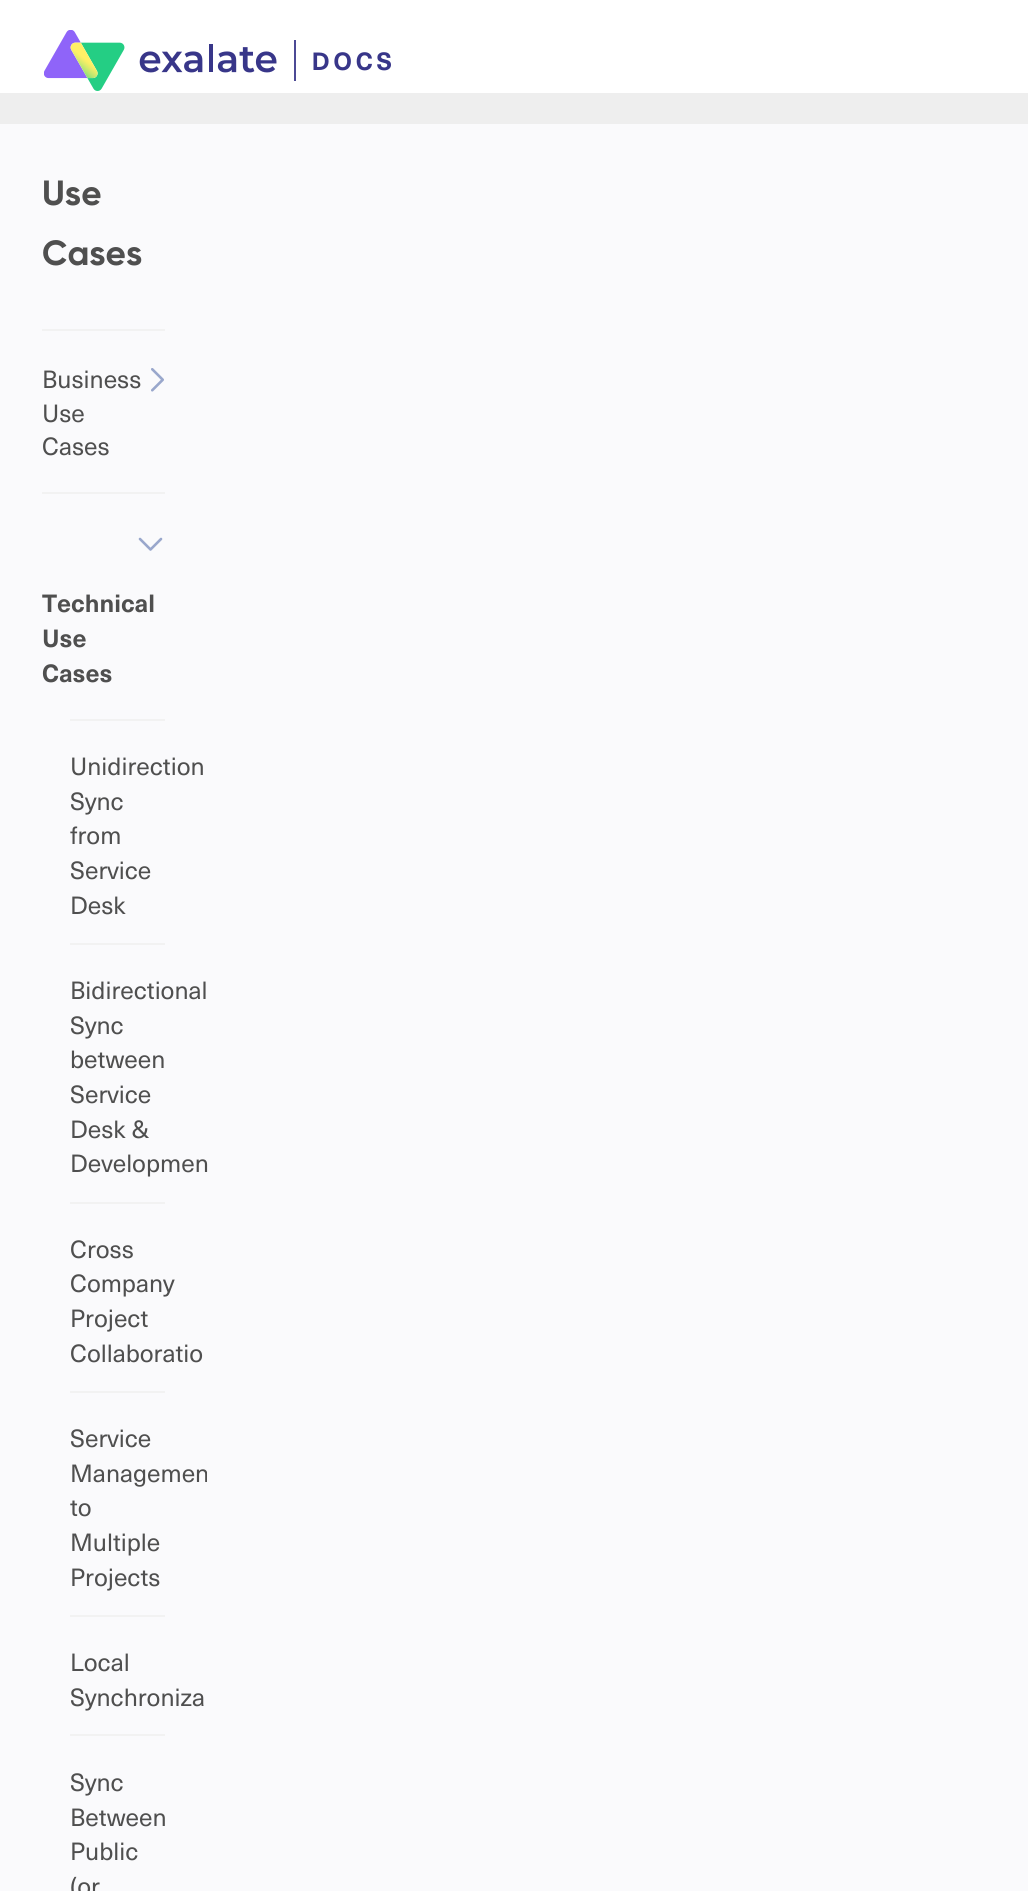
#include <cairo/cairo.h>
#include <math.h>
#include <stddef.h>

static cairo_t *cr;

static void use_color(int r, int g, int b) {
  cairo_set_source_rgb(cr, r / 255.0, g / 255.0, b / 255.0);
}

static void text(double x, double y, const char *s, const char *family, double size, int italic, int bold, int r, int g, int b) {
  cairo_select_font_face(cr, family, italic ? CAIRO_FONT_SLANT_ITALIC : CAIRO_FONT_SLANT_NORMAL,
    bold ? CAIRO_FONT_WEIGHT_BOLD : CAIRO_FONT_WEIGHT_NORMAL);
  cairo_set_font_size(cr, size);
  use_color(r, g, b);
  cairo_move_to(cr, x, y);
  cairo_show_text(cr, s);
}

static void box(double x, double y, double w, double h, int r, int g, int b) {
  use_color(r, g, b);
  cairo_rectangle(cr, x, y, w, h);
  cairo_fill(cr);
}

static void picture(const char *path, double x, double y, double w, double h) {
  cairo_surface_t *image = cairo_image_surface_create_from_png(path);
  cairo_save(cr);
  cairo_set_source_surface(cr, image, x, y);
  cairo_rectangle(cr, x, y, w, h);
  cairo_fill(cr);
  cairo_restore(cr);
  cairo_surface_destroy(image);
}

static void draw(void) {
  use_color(238, 238, 238);
  cairo_paint(cr);
  box(0, 0, 1028, 93, 255, 255, 255);
  picture("img_01.png", 44, 30, 347, 61);
  box(0, 124, 1028, 1767, 250, 250, 252);
  box(42, 329, 123, 2, 242, 242, 242);
  picture("img_02.png", 151, 368, 13, 24);
  box(42, 492, 123, 2, 242, 242, 242);
  picture("img_03.png", 138, 537, 25, 14);
  box(70, 719, 95, 2, 242, 242, 242);
  box(70, 943, 95, 2, 242, 242, 242);
  box(70, 1202, 95, 2, 242, 242, 242);
  box(70, 1391, 95, 2, 242, 242, 242);
  box(70, 1615, 95, 2, 242, 242, 242);
  box(70, 1734, 95, 2, 242, 242, 242);
  text(42, 205, "Use", "Gilroy", 35, 0, 1, 79, 79, 79);
  text(42, 265, "Cases", "Gilroy", 35, 0, 1, 79, 79, 79);
  text(42, 388, "Business", "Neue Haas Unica", 24.5, 0, 0, 79, 79, 79);
  text(42, 422, "Use", "Neue Haas Unica", 24.5, 0, 0, 79, 79, 79);
  text(42, 455, "Cases", "Neue Haas Unica", 24.5, 0, 0, 79, 79, 79);
  text(42, 612, "Technical", "Neue Haas Unica", 24.5, 0, 1, 79, 79, 79);
  text(42, 647, "Use", "Neue Haas Unica", 24.5, 0, 1, 79, 79, 79);
  text(42, 682, "Cases", "Neue Haas Unica", 24.5, 0, 1, 79, 79, 79);
  text(70, 775, "Unidirection", "Neue Haas Unica", 24.5, 0, 0, 79, 79, 79);
  text(70, 810, "Sync", "Neue Haas Unica", 24.5, 0, 0, 79, 79, 79);
  text(70, 844, "from", "Neue Haas Unica", 24.5, 0, 0, 79, 79, 79);
  text(70, 879, "Service", "Neue Haas Unica", 24.5, 0, 0, 79, 79, 79);
  text(70, 914, "Desk", "Neue Haas Unica", 24.5, 0, 0, 79, 79, 79);
  text(70, 999, "Bidirectional", "Neue Haas Unica", 24.5, 0, 0, 79, 79, 79);
  text(70, 1034, "Sync", "Neue Haas Unica", 24.5, 0, 0, 79, 79, 79);
  text(70, 1068, "between", "Neue Haas Unica", 24.5, 0, 0, 79, 79, 79);
  text(70, 1103, "Service", "Neue Haas Unica", 24.5, 0, 0, 79, 79, 79);
  text(70, 1138, "Desk &", "Neue Haas Unica", 24.5, 0, 0, 79, 79, 79);
  text(70, 1172, "Developmen", "Neue Haas Unica", 24.5, 0, 0, 79, 79, 79);
  text(70, 1258, "Cross", "Neue Haas Unica", 24.5, 0, 0, 79, 79, 79);
  text(70, 1292, "Company", "Neue Haas Unica", 24.5, 0, 0, 79, 79, 79);
  text(70, 1327, "Project", "Neue Haas Unica", 24.5, 0, 0, 79, 79, 79);
  text(70, 1362, "Collaboratio", "Neue Haas Unica", 24.5, 0, 0, 79, 79, 79);
  text(70, 1447, "Service", "Neue Haas Unica", 24.5, 0, 0, 79, 79, 79);
  cairo_save(cr);
  cairo_rectangle(cr, 0, 124, 207, 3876);
  cairo_clip(cr);
  text(70, 1482, "Managemen", "Neue Haas Unica", 24.5, 0, 0, 79, 79, 79);
  cairo_restore(cr);
  text(70, 1516, "to", "Neue Haas Unica", 24.5, 0, 0, 79, 79, 79);
  text(70, 1551, "Multiple", "Neue Haas Unica", 24.5, 0, 0, 79, 79, 79);
  text(70, 1586, "Projects", "Neue Haas Unica", 24.5, 0, 0, 79, 79, 79);
  text(70, 1671, "Local", "Neue Haas Unica", 24.5, 0, 0, 79, 79, 79);
  text(70, 1706, "Synchroniza", "Neue Haas Unica", 24.5, 0, 0, 79, 79, 79);
  text(70, 1791, "Sync", "Neue Haas Unica", 24.5, 0, 0, 79, 79, 79);
  text(70, 1826, "Between", "Neue Haas Unica", 24.5, 0, 0, 79, 79, 79);
  text(70, 1860, "Public", "Neue Haas Unica", 24.5, 0, 0, 79, 79, 79);
  text(70, 1895, "(or", "Neue Haas Unica", 24.5, 0, 0, 79, 79, 79);
}

int main(void) {
  cairo_surface_t *surface = cairo_image_surface_create(CAIRO_FORMAT_RGB24, 1028, 1891);
  cr = cairo_create(surface);
  cairo_font_options_t *options = cairo_font_options_create();
  cairo_font_options_set_hint_metrics(options, CAIRO_HINT_METRICS_OFF);
  cairo_font_options_set_hint_style(options, CAIRO_HINT_STYLE_NONE);
  cairo_set_font_options(cr, options);
  cairo_set_miter_limit(cr, 4);
  draw();
  cairo_surface_write_to_png(surface, "out.png");
  cairo_font_options_destroy(options);
  cairo_destroy(cr);
  cairo_surface_destroy(surface);
  return 0;
}
